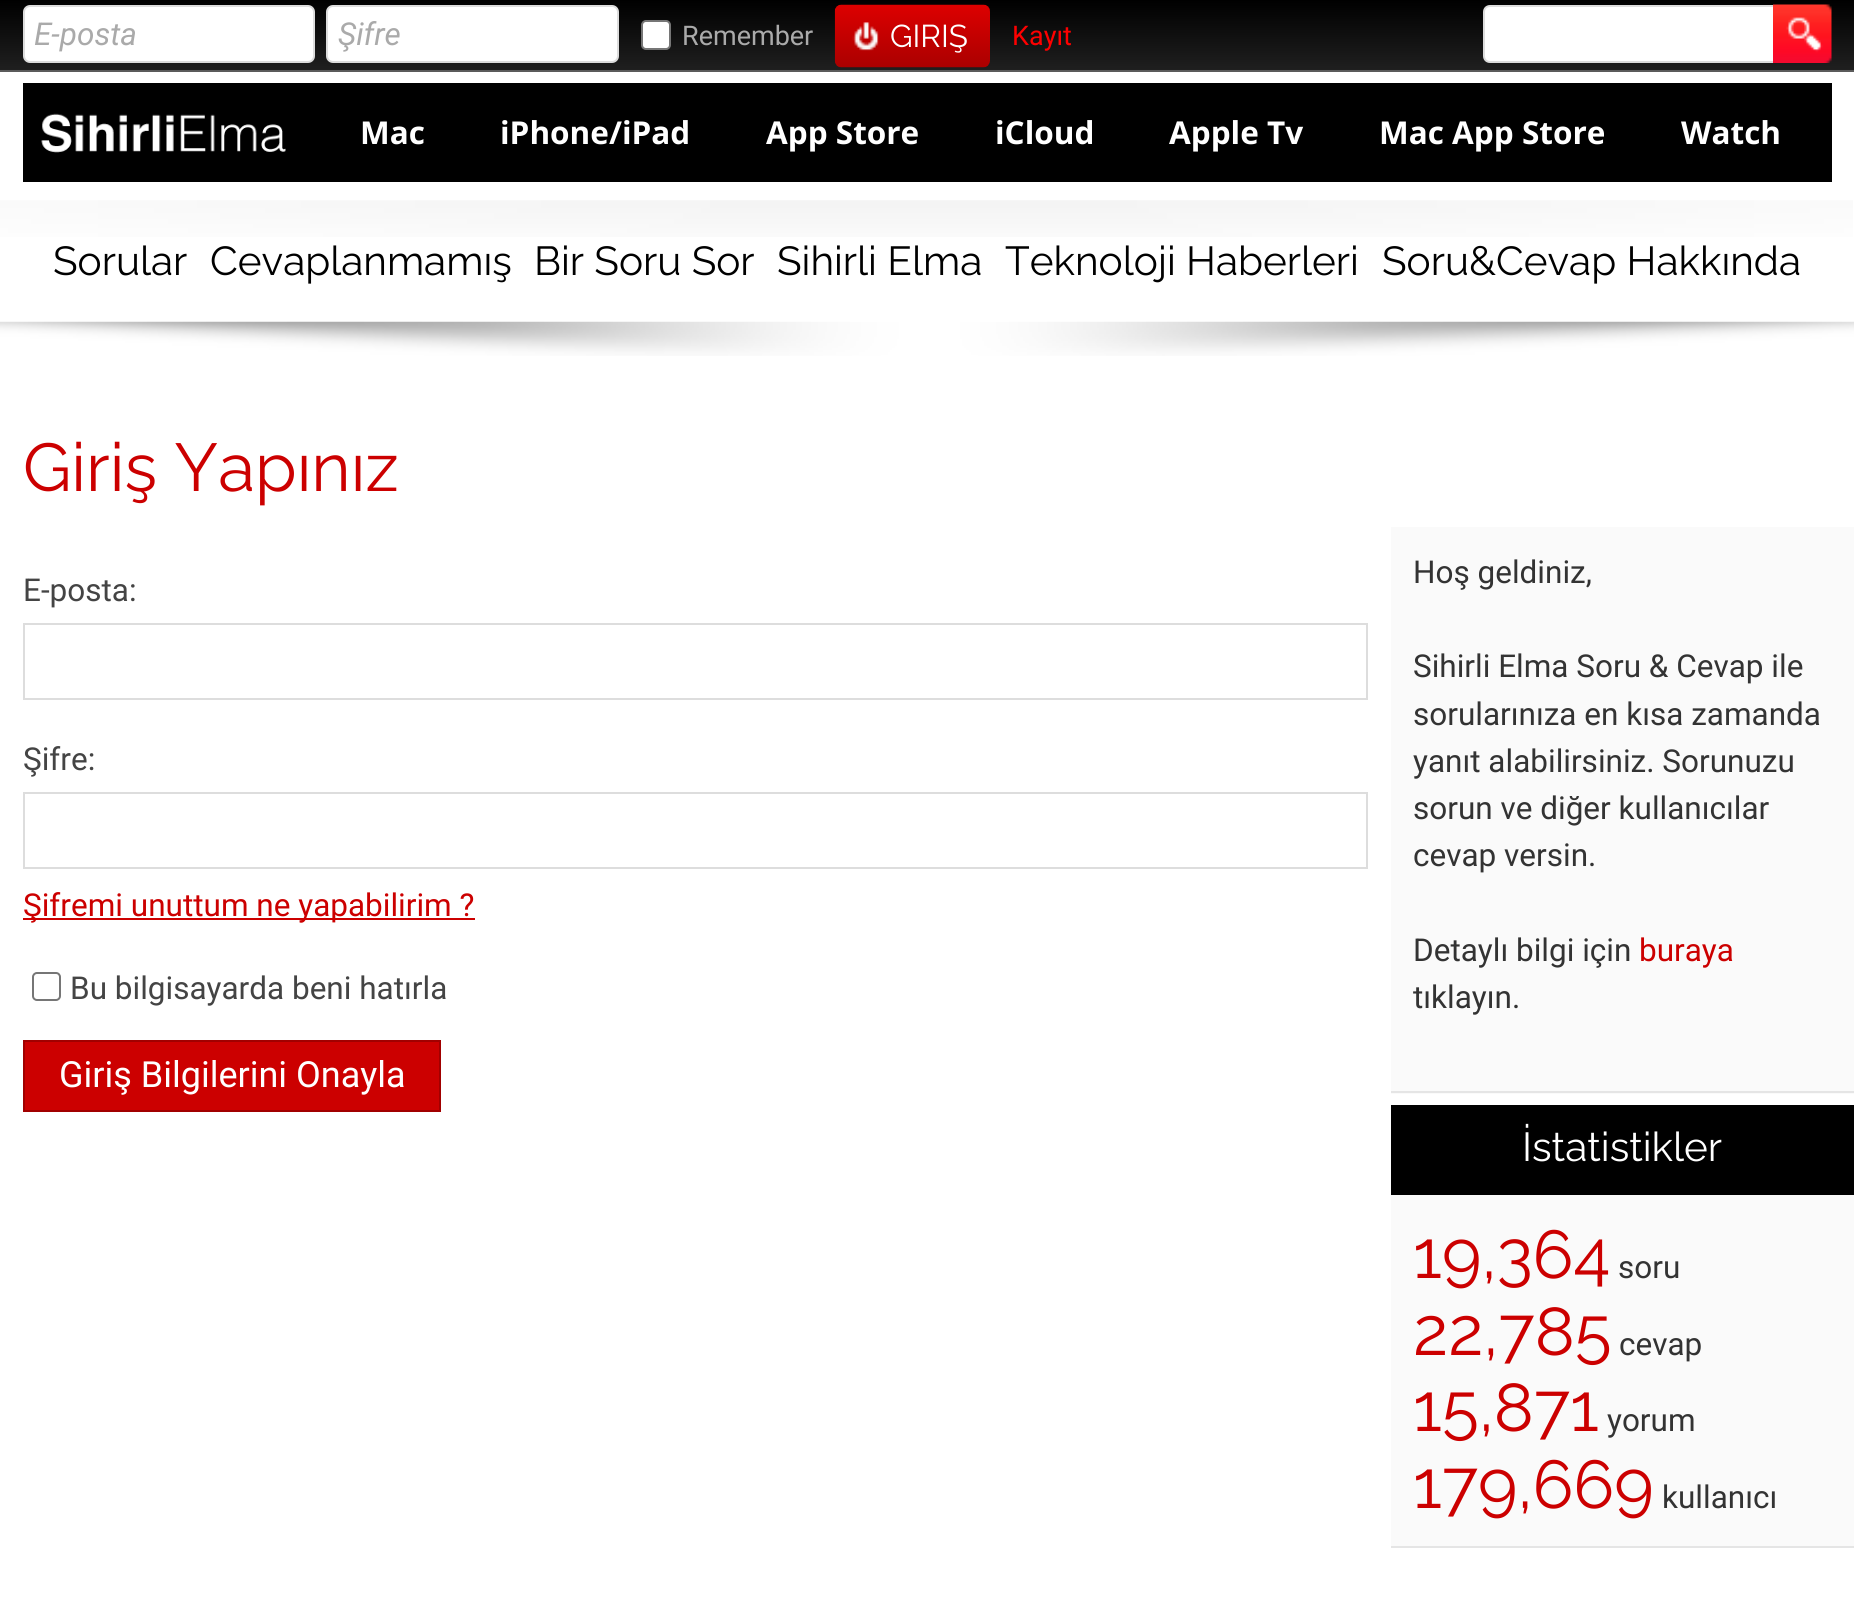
#include <cairo/cairo.h>
#include <math.h>
#include <stddef.h>

static cairo_t *cr;

static void use_color(int r, int g, int b) {
  cairo_set_source_rgb(cr, r / 255.0, g / 255.0, b / 255.0);
}

static void text(double x, double y, const char *s, const char *family, double size, int italic, int bold, int r, int g, int b) {
  cairo_select_font_face(cr, family, italic ? CAIRO_FONT_SLANT_ITALIC : CAIRO_FONT_SLANT_NORMAL,
    bold ? CAIRO_FONT_WEIGHT_BOLD : CAIRO_FONT_WEIGHT_NORMAL);
  cairo_set_font_size(cr, size);
  use_color(r, g, b);
  cairo_move_to(cr, x, y);
  cairo_show_text(cr, s);
}

static void box(double x, double y, double w, double h, int r, int g, int b) {
  use_color(r, g, b);
  cairo_rectangle(cr, x, y, w, h);
  cairo_fill(cr);
}

static void round_rect(double x, double y, double w, double h, double r) {
  cairo_new_sub_path(cr);
  cairo_arc(cr, x + w - r, y + h - r, r, 0, M_PI / 2);
  cairo_arc(cr, x + r, y + h - r, r, M_PI / 2, M_PI);
  cairo_arc(cr, x + r, y + r, r, M_PI, 1.5 * M_PI);
  cairo_arc(cr, x + w - r, y + r, r, 1.5 * M_PI, 2 * M_PI);
  cairo_close_path(cr);
}

static void picture(const char *path, double x, double y, double w, double h) {
  cairo_surface_t *image = cairo_image_surface_create_from_png(path);
  cairo_save(cr);
  cairo_set_source_surface(cr, image, x, y);
  cairo_rectangle(cr, x, y, w, h);
  cairo_fill(cr);
  cairo_restore(cr);
  cairo_surface_destroy(image);
}

static void draw(void) {
  cairo_pattern_t *gradient;
  use_color(255, 255, 255);
  cairo_paint(cr);
  gradient = cairo_pattern_create_linear(927, 0, 927, 70);
  cairo_pattern_add_color_stop_rgba(gradient, 0, 0, 0, 0, 1);
  cairo_pattern_add_color_stop_rgba(gradient, 1, 0.122, 0.122, 0.122, 1);
  cairo_set_source(cr, gradient);
  cairo_pattern_destroy(gradient);
  cairo_rectangle(cr, 0, 0, 1854, 70);
  cairo_fill(cr);
  box(0, 70, 1854, 2, 91, 91, 91);
  use_color(255, 255, 255);
  round_rect(24, 6, 290, 56, 6);
  cairo_fill_preserve(cr);
  use_color(221, 221, 221);
  cairo_stroke(cr);
  use_color(255, 255, 255);
  round_rect(327, 6, 291, 56, 6);
  cairo_fill_preserve(cr);
  use_color(221, 221, 221);
  cairo_stroke(cr);
  use_color(255, 255, 255);
  round_rect(642, 21, 28, 28, 4);
  cairo_fill_preserve(cr);
  use_color(118, 118, 118);
  cairo_stroke(cr);
  picture("img_01.png", 834, 4, 156, 64);
  use_color(255, 255, 255);
  cairo_new_path(cr);
  cairo_move_to(cr, 1490, 6);
  cairo_line_to(cr, 1774, 6);
  cairo_line_to(cr, 1774, 62);
  cairo_line_to(cr, 1490, 62);
  cairo_curve_to(cr, 1486.5, 62, 1484, 59.5, 1484, 56);
  cairo_line_to(cr, 1484, 12);
  cairo_curve_to(cr, 1484, 8.5, 1486.5, 6, 1490, 6);
  cairo_close_path(cr);
  cairo_fill_preserve(cr);
  use_color(221, 221, 221);
  cairo_stroke(cr);
  picture("img_02.png", 1773, 4, 59, 59);
  box(23, 83, 1809, 99, 0, 0, 0);
  picture("img_03.png", 41, 113, 245, 40);
  picture("img_04.png", 0, 200, 1853, 37);
  picture("img_05.png", 0, 321, 1854, 35);
  cairo_rectangle(cr, 24, 624, 1343, 75);
  use_color(221, 221, 221);
  cairo_stroke(cr);
  cairo_rectangle(cr, 24, 793, 1343, 75);
  cairo_stroke(cr);
  box(23, 918, 452, 2, 204, 0, 0);
  round_rect(33, 973, 27, 27, 4);
  use_color(118, 118, 118);
  cairo_stroke(cr);
  use_color(204, 0, 0);
  cairo_rectangle(cr, 24, 1041, 416, 70);
  cairo_fill_preserve(cr);
  use_color(161, 0, 0);
  cairo_stroke(cr);
  box(1391, 527, 463, 567, 250, 250, 250);
  box(1391, 1091, 463, 2, 229, 229, 229);
  box(1391, 1195, 463, 351, 250, 250, 250);
  box(1391, 1546, 463, 2, 229, 229, 229);
  box(1391, 1105, 463, 90, 0, 0, 0);
  text(34, 45, "E-posta", "Roboto", 31.5, 1, 0, 170, 170, 170);
  text(338, 45, "Şifre", "Roboto", 31.5, 1, 0, 170, 170, 170);
  text(682, 45, "Remember", "Roboto", 27, 0, 0, 170, 170, 170);
  text(890, 47, "GIRIŞ", "Raleway", 31.5, 0, 0, 255, 255, 255);
  text(1012, 45, "Kayıt", "Roboto", 27, 0, 0, 255, 0, 0);
  text(360, 144, "Mac", "Open Sans", 31.5, 0, 1, 255, 255, 255);
  text(500, 144, "iPhone/iPad", "Open Sans", 31.5, 0, 1, 255, 255, 255);
  text(766, 144, "App Store", "Open Sans", 31.5, 0, 1, 255, 255, 255);
  text(995, 144, "iCloud", "Open Sans", 31.5, 0, 1, 255, 255, 255);
  text(1169, 144, "Apple Tv", "Open Sans", 31.5, 0, 1, 255, 255, 255);
  text(1379, 144, "Mac App Store", "Open Sans", 31.5, 0, 1, 255, 255, 255);
  text(1681, 144, "Watch", "Open Sans", 31.5, 0, 1, 255, 255, 255);
  text(53, 275, "Sorular", "Raleway", 40.5, 0, 0, 0, 0, 0);
  text(210, 275, "Cevaplanmamış", "Raleway", 40.5, 0, 0, 0, 0, 0);
  text(534, 275, "Bir Soru Sor", "Raleway", 40.5, 0, 0, 0, 0, 0);
  text(777, 275, "Sihirli Elma", "Raleway", 40.5, 0, 0, 0, 0, 0);
  text(1005, 275, "Teknoloji Haberleri", "Raleway", 40.5, 0, 0, 0, 0, 0);
  text(1382, 275, "Soru&Cevap Hakkında", "Raleway", 40.5, 0, 0, 0, 0, 0);
  text(23, 491, "Giriş Yapınız", "Raleway", 67.5, 0, 0, 204, 0, 0);
  text(23, 601, "E-posta:", "Roboto", 31.5, 0, 0, 68, 68, 68);
  text(23, 770, "Şifre:", "Roboto", 31.5, 0, 0, 68, 68, 68);
  text(23, 916, "Şifremi unuttum ne yapabilirim ?", "Roboto", 31.5, 0, 0, 204, 0, 0);
  text(70, 999, "Bu bilgisayarda beni hatırla", "Roboto", 31.5, 0, 0, 68, 68, 68);
  text(59, 1087, "Giriş Bilgilerini Onayla", "Roboto", 36, 0, 0, 255, 255, 255);
  text(1413, 583, "Hoş geldiniz,", "Roboto", 31.5, 0, 0, 51, 51, 51);
  text(1413, 677, "Sihirli Elma Soru & Cevap ile", "Roboto", 31.5, 0, 0, 51, 51, 51);
  text(1413, 725, "sorularınıza en kısa zamanda", "Roboto", 31.5, 0, 0, 51, 51, 51);
  text(1413, 772, "yanıt alabilirsiniz. Sorunuzu", "Roboto", 31.5, 0, 0, 51, 51, 51);
  text(1413, 819, "sorun ve diğer kullanıcılar", "Roboto", 31.5, 0, 0, 51, 51, 51);
  text(1413, 866, "cevap versin.", "Roboto", 31.5, 0, 0, 51, 51, 51);
  text(1413, 961, "Detaylı bilgi için", "Roboto", 31.5, 0, 0, 51, 51, 51);
  text(1639, 961, "buraya", "Roboto", 31.5, 0, 0, 204, 0, 0);
  text(1413, 1008, "tıklayın.", "Roboto", 31.5, 0, 0, 51, 51, 51);
  text(1522, 1161, "İstatistikler", "Raleway", 40.5, 0, 0, 255, 255, 255);
  text(1413, 1278, "19,364", "Raleway", 67.5, 0, 0, 204, 0, 0);
  text(1618, 1278, "soru", "Roboto", 31.5, 0, 0, 51, 51, 51);
  text(1413, 1355, "22,785", "Raleway", 67.5, 0, 0, 204, 0, 0);
  text(1619, 1355, "cevap", "Roboto", 31.5, 0, 0, 51, 51, 51);
  text(1413, 1431, "15,871", "Raleway", 67.5, 0, 0, 204, 0, 0);
  text(1607, 1431, "yorum", "Roboto", 31.5, 0, 0, 51, 51, 51);
  text(1413, 1508, "179,669", "Raleway", 67.5, 0, 0, 204, 0, 0);
  text(1662, 1508, "kullanıcı", "Roboto", 31.5, 0, 0, 51, 51, 51);
}

int main(void) {
  cairo_surface_t *surface = cairo_image_surface_create(CAIRO_FORMAT_RGB24, 1854, 1607);
  cr = cairo_create(surface);
  cairo_font_options_t *options = cairo_font_options_create();
  cairo_font_options_set_hint_metrics(options, CAIRO_HINT_METRICS_OFF);
  cairo_font_options_set_hint_style(options, CAIRO_HINT_STYLE_NONE);
  cairo_set_font_options(cr, options);
  cairo_set_miter_limit(cr, 4);
  draw();
  cairo_surface_write_to_png(surface, "out.png");
  cairo_font_options_destroy(options);
  cairo_destroy(cr);
  cairo_surface_destroy(surface);
  return 0;
}
